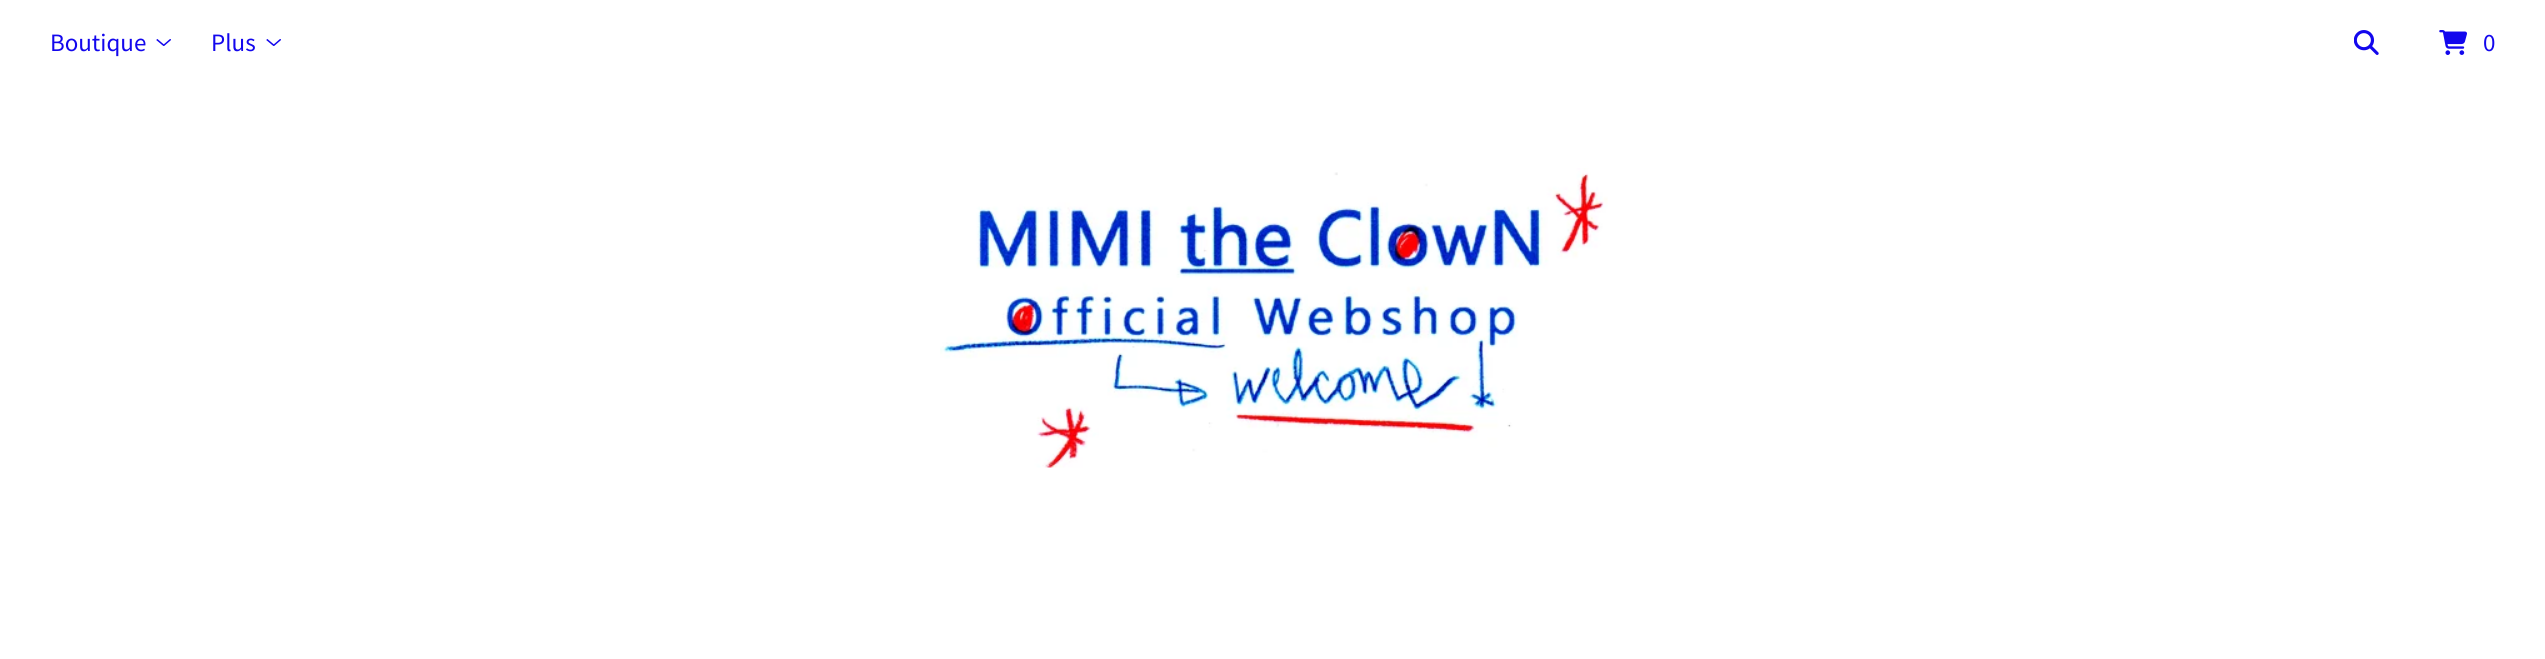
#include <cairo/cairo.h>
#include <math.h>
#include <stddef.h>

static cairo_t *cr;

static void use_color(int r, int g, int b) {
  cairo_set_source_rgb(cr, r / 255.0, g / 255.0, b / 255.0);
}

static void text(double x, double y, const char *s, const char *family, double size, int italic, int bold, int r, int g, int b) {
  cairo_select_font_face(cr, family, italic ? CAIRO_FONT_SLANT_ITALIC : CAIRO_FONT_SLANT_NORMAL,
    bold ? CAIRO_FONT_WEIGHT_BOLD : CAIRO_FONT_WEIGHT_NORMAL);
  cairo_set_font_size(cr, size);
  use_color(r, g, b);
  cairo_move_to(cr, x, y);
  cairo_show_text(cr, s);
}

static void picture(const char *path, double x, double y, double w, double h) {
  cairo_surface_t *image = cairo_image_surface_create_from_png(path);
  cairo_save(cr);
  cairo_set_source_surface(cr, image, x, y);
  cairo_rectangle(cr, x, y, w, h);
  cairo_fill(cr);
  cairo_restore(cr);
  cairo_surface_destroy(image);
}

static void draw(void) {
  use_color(255, 255, 255);
  cairo_paint(cr);
  picture("img_01.png", 156, 39, 15, 7);
  picture("img_01.png", 266, 39, 15, 7);
  picture("img_02.png", 2354, 30, 25, 25);
  picture("img_03.png", 2439, 30, 28, 25);
  picture("img_04.png", 940, 168, 668, 300);
  text(50, 51, "Boutique", "Source Sans Pro", 25, 0, 0, 19, 7, 237);
  text(211, 51, "Plus", "Source Sans Pro", 25, 0, 0, 19, 7, 237);
  text(2483, 51, "0", "Source Sans Pro", 25, 0, 0, 19, 7, 237);
}

int main(void) {
  cairo_surface_t *surface = cairo_image_surface_create(CAIRO_FORMAT_RGB24, 2545, 659);
  cr = cairo_create(surface);
  cairo_font_options_t *options = cairo_font_options_create();
  cairo_font_options_set_hint_metrics(options, CAIRO_HINT_METRICS_OFF);
  cairo_font_options_set_hint_style(options, CAIRO_HINT_STYLE_NONE);
  cairo_set_font_options(cr, options);
  cairo_set_miter_limit(cr, 4);
  draw();
  cairo_surface_write_to_png(surface, "out.png");
  cairo_font_options_destroy(options);
  cairo_destroy(cr);
  cairo_surface_destroy(surface);
  return 0;
}
